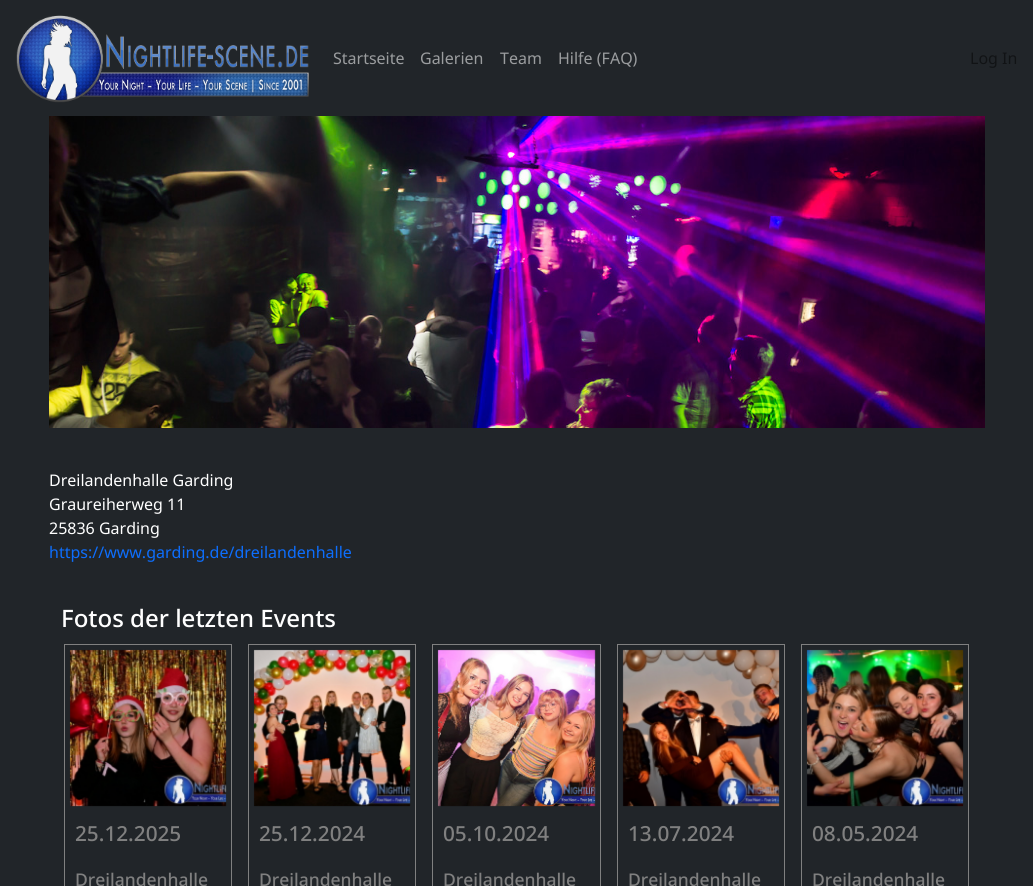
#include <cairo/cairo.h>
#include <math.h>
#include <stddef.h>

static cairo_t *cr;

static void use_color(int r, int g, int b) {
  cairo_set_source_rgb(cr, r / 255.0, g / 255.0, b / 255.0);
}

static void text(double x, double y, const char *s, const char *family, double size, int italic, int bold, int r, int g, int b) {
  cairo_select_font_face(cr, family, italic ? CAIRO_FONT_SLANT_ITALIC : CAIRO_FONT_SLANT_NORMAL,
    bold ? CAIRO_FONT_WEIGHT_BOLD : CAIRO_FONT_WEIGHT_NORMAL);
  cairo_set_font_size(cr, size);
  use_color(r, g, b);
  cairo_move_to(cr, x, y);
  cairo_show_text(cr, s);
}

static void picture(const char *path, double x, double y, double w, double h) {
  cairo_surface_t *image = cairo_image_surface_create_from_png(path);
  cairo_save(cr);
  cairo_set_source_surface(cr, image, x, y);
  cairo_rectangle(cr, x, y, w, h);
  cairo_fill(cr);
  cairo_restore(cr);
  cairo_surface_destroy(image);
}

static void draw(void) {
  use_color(33, 37, 41);
  cairo_paint(cr);
  picture("img_01.png", 16, 15, 293, 88);
  picture("img_02.png", 49, 116, 936, 312);
  cairo_rectangle(cr, 64.5, 644.5, 167, 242);
  use_color(128, 128, 128);
  cairo_set_line_width(cr, 1);
  cairo_stroke(cr);
  picture("img_03.png", 69, 649, 158, 158);
  cairo_rectangle(cr, 248.5, 644.5, 167, 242);
  cairo_stroke(cr);
  picture("img_04.png", 253, 649, 158, 158);
  cairo_rectangle(cr, 432.5, 644.5, 168, 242);
  cairo_stroke(cr);
  picture("img_05.png", 437, 649, 159, 158);
  cairo_rectangle(cr, 617.5, 644.5, 167, 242);
  cairo_stroke(cr);
  picture("img_06.png", 622, 649, 158, 158);
  cairo_rectangle(cr, 801.5, 644.5, 167, 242);
  cairo_stroke(cr);
  picture("img_07.png", 806, 649, 158, 158);
  text(333, 64, "Startseite", "Noto Sans", 16, 0, 0, 155, 157, 159);
  text(420, 64, "Galerien", "Noto Sans", 16, 0, 0, 155, 157, 159);
  text(500, 64, "Team", "Noto Sans", 16, 0, 0, 155, 157, 159);
  text(558, 64, "Hilfe (FAQ)", "Noto Sans", 16, 0, 0, 155, 157, 159);
  text(970, 64, "Log In", "Noto Sans", 16, 0, 0, 17, 19, 21);
  text(49, 486, "Dreilandenhalle Garding", "Noto Sans", 16, 0, 0, 255, 255, 255);
  text(49, 510, "Graureiherweg 11", "Noto Sans", 16, 0, 0, 255, 255, 255);
  text(49, 534, "25836 Garding", "Noto Sans", 16, 0, 0, 255, 255, 255);
  text(49, 558, "https://www.garding.de/dreilandenhalle", "Noto Sans", 16, 0, 0, 13, 110, 253);
  text(61, 627, "Fotos der letzten Events", "Noto Sans Medium", 24, 0, 0, 255, 255, 255);
  text(75, 841, "25.12.2025", "Noto Sans Medium", 20.75, 0, 0, 128, 128, 128);
  text(75, 886, "Dreilandenhalle", "Noto Sans Medium", 17.5, 0, 0, 128, 128, 128);
  text(259, 841, "25.12.2024", "Noto Sans Medium", 20.75, 0, 0, 128, 128, 128);
  text(259, 886, "Dreilandenhalle", "Noto Sans Medium", 17.5, 0, 0, 128, 128, 128);
  text(443, 841, "05.10.2024", "Noto Sans Medium", 20.75, 0, 0, 128, 128, 128);
  text(443, 886, "Dreilandenhalle", "Noto Sans Medium", 17.5, 0, 0, 128, 128, 128);
  text(628, 841, "13.07.2024", "Noto Sans Medium", 20.75, 0, 0, 128, 128, 128);
  text(628, 886, "Dreilandenhalle", "Noto Sans Medium", 17.5, 0, 0, 128, 128, 128);
  text(812, 841, "08.05.2024", "Noto Sans Medium", 20.75, 0, 0, 128, 128, 128);
  text(812, 886, "Dreilandenhalle", "Noto Sans Medium", 17.5, 0, 0, 128, 128, 128);
}

int main(void) {
  cairo_surface_t *surface = cairo_image_surface_create(CAIRO_FORMAT_RGB24, 1033, 886);
  cr = cairo_create(surface);
  cairo_font_options_t *options = cairo_font_options_create();
  cairo_font_options_set_hint_metrics(options, CAIRO_HINT_METRICS_OFF);
  cairo_font_options_set_hint_style(options, CAIRO_HINT_STYLE_NONE);
  cairo_set_font_options(cr, options);
  cairo_set_miter_limit(cr, 4);
  draw();
  cairo_surface_write_to_png(surface, "out.png");
  cairo_font_options_destroy(options);
  cairo_destroy(cr);
  cairo_surface_destroy(surface);
  return 0;
}
